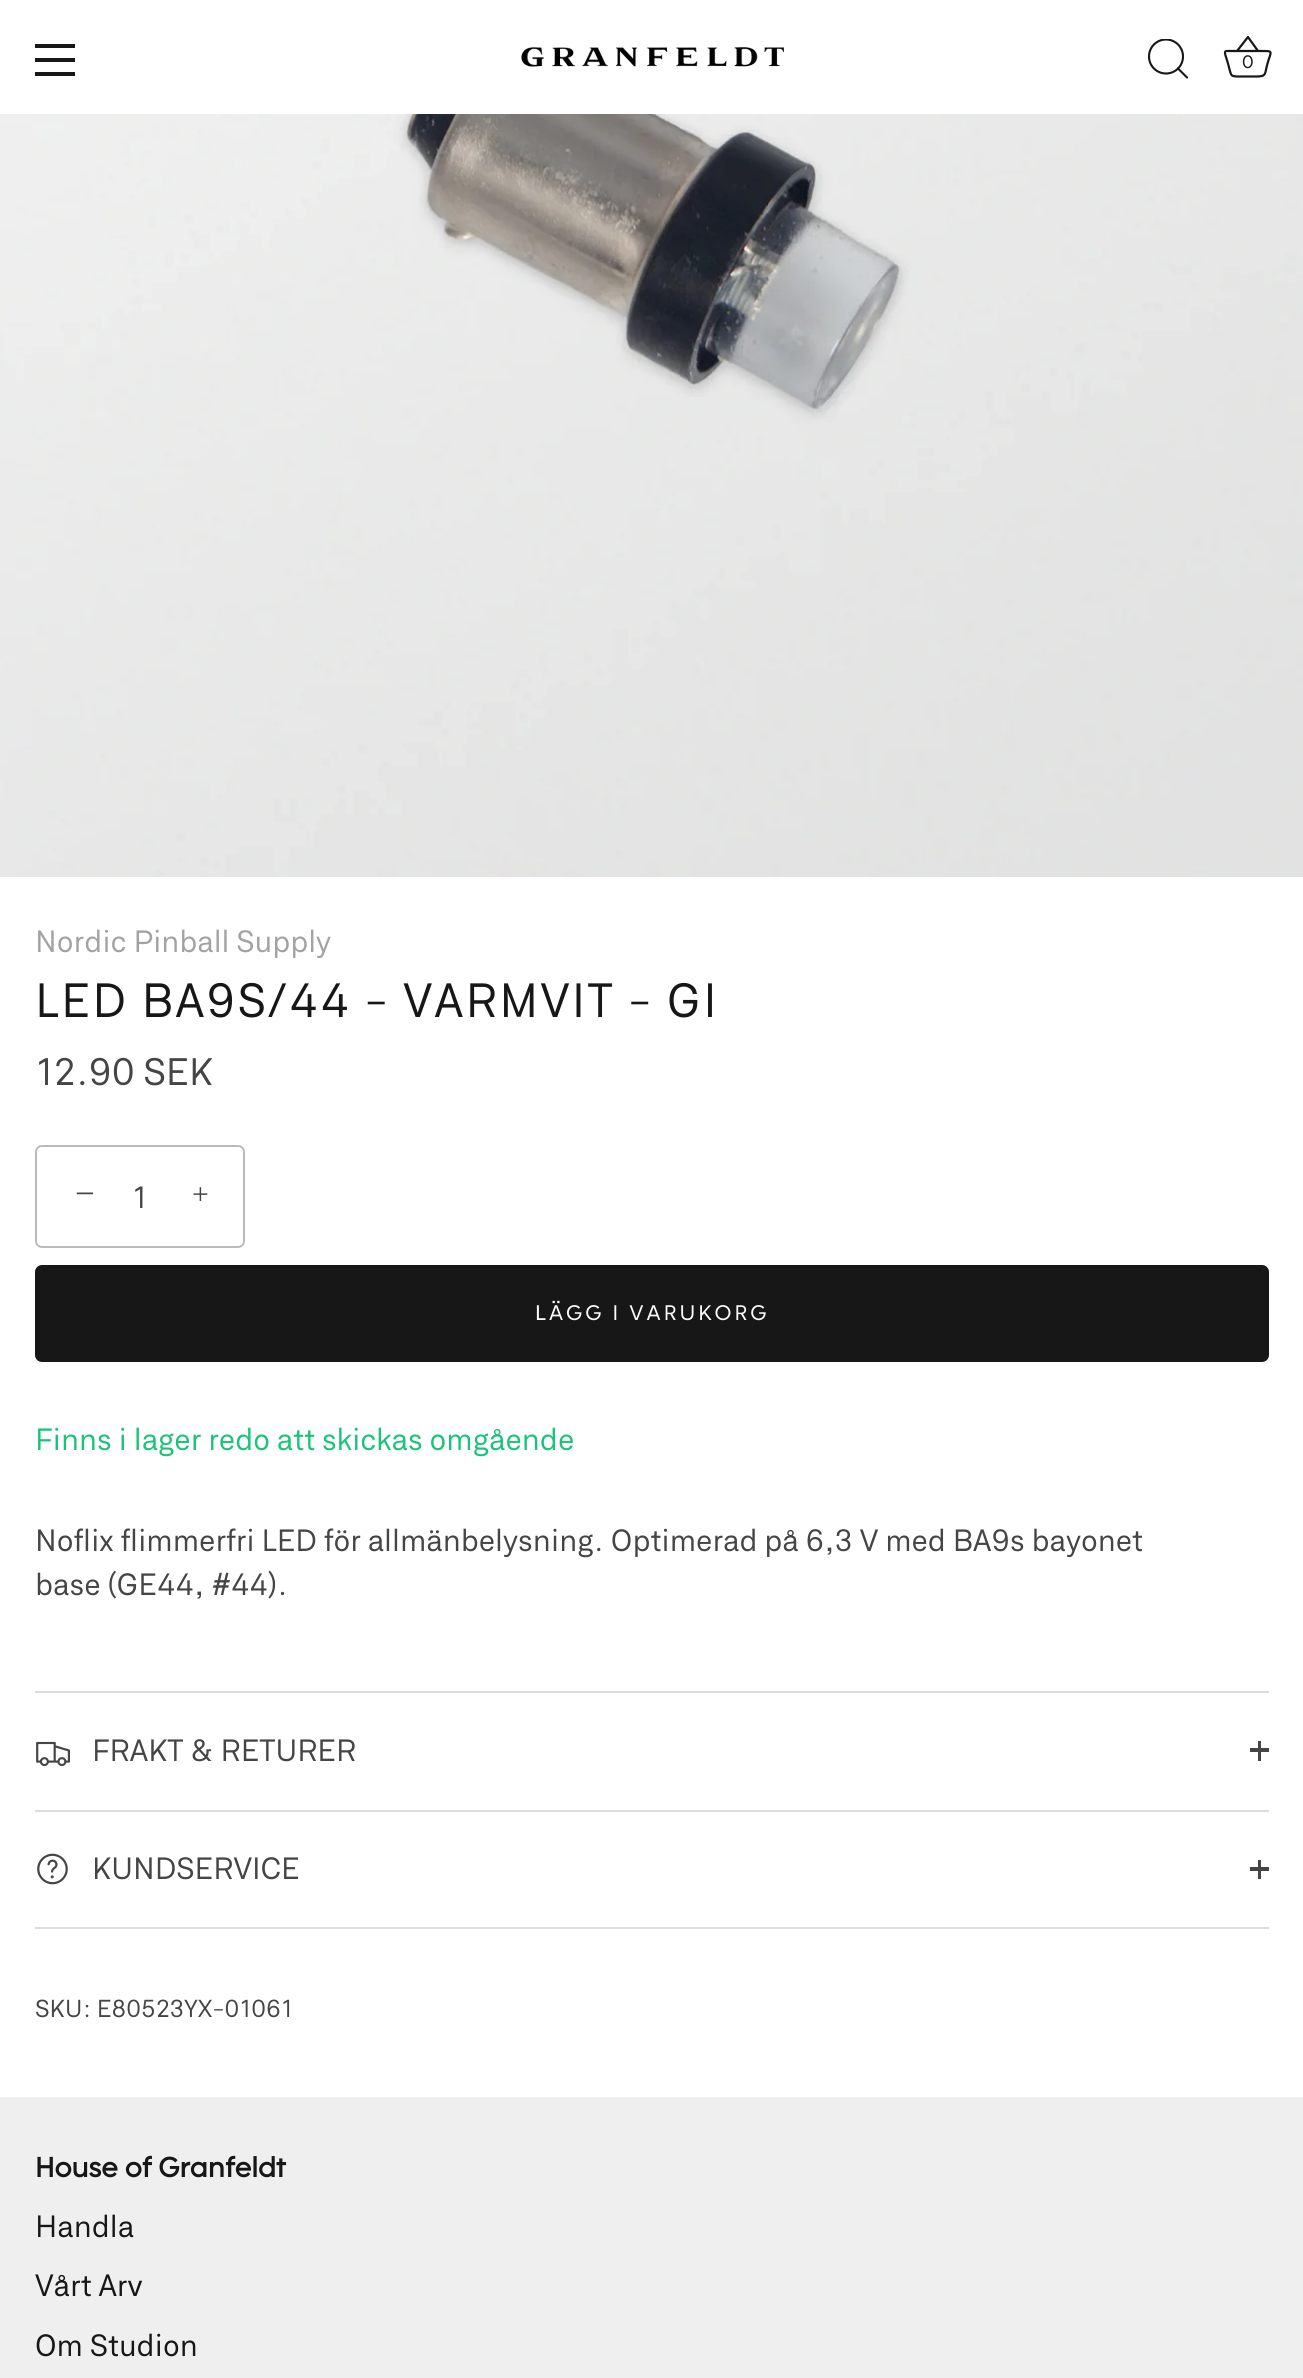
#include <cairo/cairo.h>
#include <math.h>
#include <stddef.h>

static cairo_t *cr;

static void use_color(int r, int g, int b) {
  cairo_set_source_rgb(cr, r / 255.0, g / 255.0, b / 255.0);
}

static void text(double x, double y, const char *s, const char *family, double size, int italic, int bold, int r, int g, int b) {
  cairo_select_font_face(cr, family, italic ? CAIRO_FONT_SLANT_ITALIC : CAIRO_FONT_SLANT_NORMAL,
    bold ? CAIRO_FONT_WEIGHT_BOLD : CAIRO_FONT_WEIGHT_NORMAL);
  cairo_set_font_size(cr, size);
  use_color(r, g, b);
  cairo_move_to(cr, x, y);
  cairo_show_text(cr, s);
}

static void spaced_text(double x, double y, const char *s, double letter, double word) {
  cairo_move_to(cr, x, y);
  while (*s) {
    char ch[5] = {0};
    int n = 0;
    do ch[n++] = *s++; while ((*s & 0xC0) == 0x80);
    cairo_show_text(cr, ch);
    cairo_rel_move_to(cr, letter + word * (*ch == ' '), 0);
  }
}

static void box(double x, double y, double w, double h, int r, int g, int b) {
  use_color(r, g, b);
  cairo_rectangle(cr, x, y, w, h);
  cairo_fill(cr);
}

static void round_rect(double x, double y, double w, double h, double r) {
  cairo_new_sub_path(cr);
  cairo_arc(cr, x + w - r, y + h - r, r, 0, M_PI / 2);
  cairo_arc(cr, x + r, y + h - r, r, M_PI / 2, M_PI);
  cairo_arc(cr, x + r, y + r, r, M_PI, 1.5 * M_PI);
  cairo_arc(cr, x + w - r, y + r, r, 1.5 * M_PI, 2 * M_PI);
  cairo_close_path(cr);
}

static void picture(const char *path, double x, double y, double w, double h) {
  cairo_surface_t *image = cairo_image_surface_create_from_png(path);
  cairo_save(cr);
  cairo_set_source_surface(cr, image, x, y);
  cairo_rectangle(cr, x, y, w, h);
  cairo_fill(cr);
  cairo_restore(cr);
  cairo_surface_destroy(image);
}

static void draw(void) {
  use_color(255, 255, 255);
  cairo_paint(cr);
  box(35, 44, 40, 4, 23, 23, 23);
  box(35, 58, 40, 4, 23, 23, 23);
  box(35, 72, 40, 4, 23, 23, 23);
  picture("img_01.png", 521, 47, 263, 20);
  cairo_save(cr);
  cairo_rectangle(cr, 1148, 39, 42, 42);
  cairo_clip(cr);
  cairo_arc(cr, 1166, 56.5, 17, 0, 2 * M_PI);
  cairo_set_line_width(cr, 2.1);
  cairo_stroke(cr);
  cairo_restore(cr);
  cairo_new_path(cr);
  cairo_move_to(cr, 1187, 77.5);
  cairo_line_to(cr, 1178, 68.5);
  cairo_set_line_width(cr, 2.1);
  cairo_set_line_cap(cr, CAIRO_LINE_CAP_ROUND);
  cairo_set_line_join(cr, CAIRO_LINE_JOIN_ROUND);
  cairo_stroke(cr);
  cairo_new_path(cr);
  cairo_move_to(cr, 1227, 51);
  cairo_curve_to(cr, 1223.5, 50.5, 1225.5, 55.5, 1226, 57);
  cairo_line_to(cr, 1228, 63.5);
  cairo_curve_to(cr, 1232, 77.5, 1229, 76.5, 1243.5, 76.5);
  cairo_line_to(cr, 1256, 76.5);
  cairo_curve_to(cr, 1267, 76.5, 1264.5, 74, 1267.5, 63.5);
  cairo_curve_to(cr, 1271, 51, 1274, 51, 1261.5, 51);
  cairo_line_to(cr, 1227, 51);
  cairo_move_to(cr, 1237, 51);
  cairo_line_to(cr, 1248, 37);
  cairo_line_to(cr, 1258, 51);
  cairo_set_line_width(cr, 2.2);
  cairo_set_line_cap(cr, CAIRO_LINE_CAP_BUTT);
  cairo_stroke(cr);
  picture("img_02.png", 0, 114, 1303, 763);
  round_rect(36, 1146, 208, 101, 6);
  use_color(187, 187, 187);
  cairo_set_line_width(cr, 2);
  cairo_set_line_join(cr, CAIRO_LINE_JOIN_MITER);
  cairo_stroke(cr);
  use_color(23, 23, 23);
  round_rect(36, 1266, 1232, 95, 6);
  cairo_fill_preserve(cr);
  cairo_stroke(cr);
  box(35, 1691, 1234, 2, 221, 221, 221);
  box(35, 1810, 1234, 2, 221, 221, 221);
  picture("img_03.png", 36, 1741, 34, 26);
  box(1258, 1741, 3, 20, 69, 69, 69);
  box(1250, 1748, 19, 4, 69, 69, 69);
  box(35, 1927, 1234, 2, 221, 221, 221);
  picture("img_04.png", 37, 1853, 31, 32);
  box(1258, 1860, 3, 19, 69, 69, 69);
  box(1250, 1867, 19, 4, 69, 69, 69);
  box(0, 2097, 1303, 281, 239, 239, 239);
  text(1242, 68, "0", "Figtree", 18, 0, 0, 23, 23, 23);
  text(35, 952, "Nordic Pinball Supply", "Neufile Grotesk", 29.75, 0, 0, 162, 162, 162);
  cairo_set_font_size(cr, 46.4);
  use_color(23, 23, 23);
  spaced_text(35, 1017, "LED BA9S/44 - VARMVIT - GI", 2.3, 0);
  text(35, 1085, "12.90 SEK", "Neufile Grotesk", 37, 0, 0, 69, 69, 69);
  text(75, 1205, "−", "Liberation Serif", 35, 0, 0, 69, 69, 69);
  cairo_select_font_face(cr, "Neufile Grotesk", CAIRO_FONT_SLANT_NORMAL, CAIRO_FONT_WEIGHT_NORMAL);
  cairo_set_font_size(cr, 29.75);
  spaced_text(132, 1208, "1", 1, 0);
  text(192, 1204, "+", "Liberation Serif", 29.75, 0, 0, 69, 69, 69);
  cairo_select_font_face(cr, "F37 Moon", CAIRO_FONT_SLANT_NORMAL, CAIRO_FONT_WEIGHT_NORMAL);
  cairo_set_font_size(cr, 22.75);
  use_color(250, 250, 250);
  spaced_text(535, 1320, "LÄGG I VARUKORG", 3, 0);
  text(35, 1450, "Finns i lager redo att skickas omgående", "Neufile Grotesk", 29.75, 0, 0, 25, 196, 121);
  text(35, 1551, "Noflix flimmerfri LED för allmänbelysning. Optimerad på 6,3 V med BA9s bayonet", "Neufile Grotesk", 29.75, 0, 0, 69, 69, 69);
  text(35, 1595, "base (GE44, #44).", "Neufile Grotesk", 29.75, 0, 0, 69, 69, 69);
  text(92, 1761, "FRAKT & RETURER", "Neufile Grotesk", 29.75, 0, 0, 69, 69, 69);
  text(92, 1879, "KUNDSERVICE", "Neufile Grotesk", 29.75, 0, 0, 69, 69, 69);
  text(35, 2017, "SKU: E80523YX-01061", "Neufile Grotesk", 23.75, 0, 0, 69, 69, 69);
  text(35, 2177, "House of Granfeldt", "F37 Moon", 29.75, 0, 1, 23, 23, 23);
  text(35, 2237, "Handla", "Neufile Grotesk", 29.75, 0, 0, 23, 23, 23);
  text(35, 2296, "Vårt Arv", "Neufile Grotesk", 29.75, 0, 0, 23, 23, 23);
  text(35, 2356, "Om Studion", "Neufile Grotesk", 29.75, 0, 0, 23, 23, 23);
}

int main(void) {
  cairo_surface_t *surface = cairo_image_surface_create(CAIRO_FORMAT_RGB24, 1303, 2378);
  cr = cairo_create(surface);
  cairo_font_options_t *options = cairo_font_options_create();
  cairo_font_options_set_hint_metrics(options, CAIRO_HINT_METRICS_OFF);
  cairo_font_options_set_hint_style(options, CAIRO_HINT_STYLE_NONE);
  cairo_set_font_options(cr, options);
  cairo_set_miter_limit(cr, 4);
  draw();
  cairo_surface_write_to_png(surface, "out.png");
  cairo_font_options_destroy(options);
  cairo_destroy(cr);
  cairo_surface_destroy(surface);
  return 0;
}
